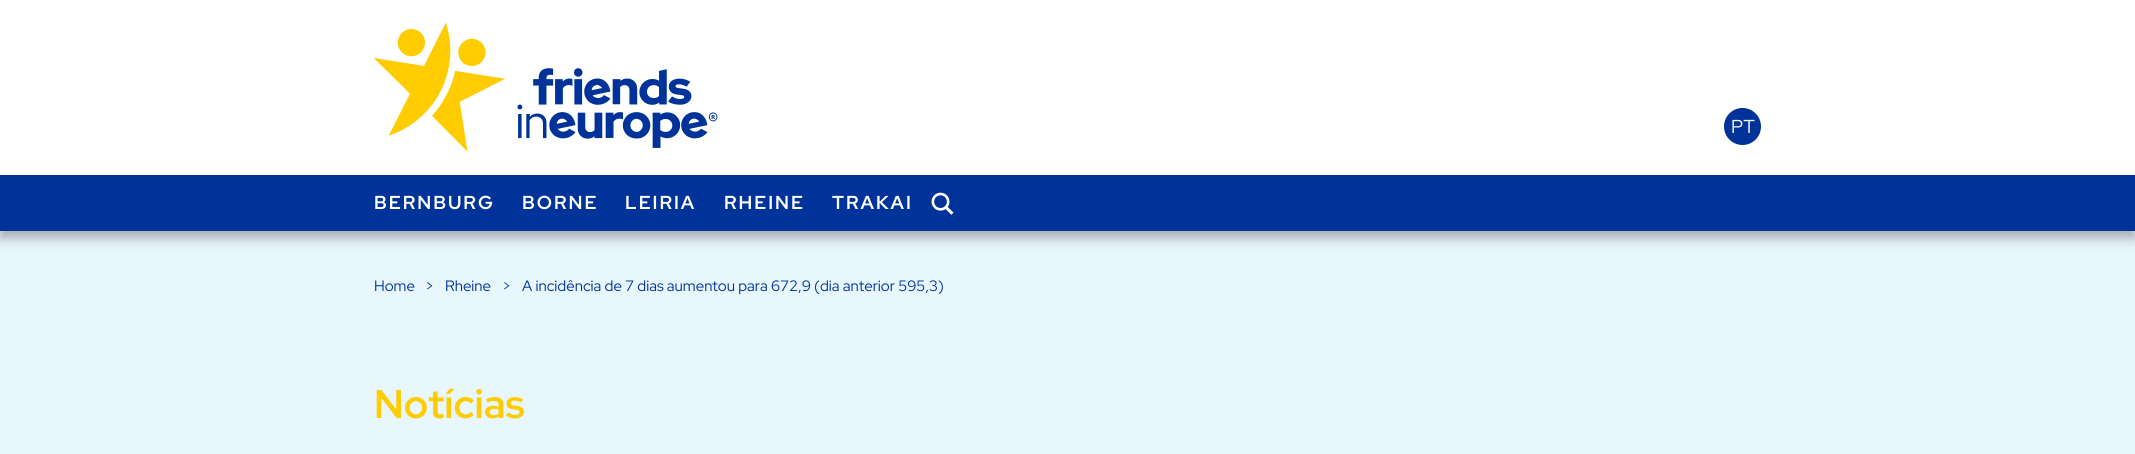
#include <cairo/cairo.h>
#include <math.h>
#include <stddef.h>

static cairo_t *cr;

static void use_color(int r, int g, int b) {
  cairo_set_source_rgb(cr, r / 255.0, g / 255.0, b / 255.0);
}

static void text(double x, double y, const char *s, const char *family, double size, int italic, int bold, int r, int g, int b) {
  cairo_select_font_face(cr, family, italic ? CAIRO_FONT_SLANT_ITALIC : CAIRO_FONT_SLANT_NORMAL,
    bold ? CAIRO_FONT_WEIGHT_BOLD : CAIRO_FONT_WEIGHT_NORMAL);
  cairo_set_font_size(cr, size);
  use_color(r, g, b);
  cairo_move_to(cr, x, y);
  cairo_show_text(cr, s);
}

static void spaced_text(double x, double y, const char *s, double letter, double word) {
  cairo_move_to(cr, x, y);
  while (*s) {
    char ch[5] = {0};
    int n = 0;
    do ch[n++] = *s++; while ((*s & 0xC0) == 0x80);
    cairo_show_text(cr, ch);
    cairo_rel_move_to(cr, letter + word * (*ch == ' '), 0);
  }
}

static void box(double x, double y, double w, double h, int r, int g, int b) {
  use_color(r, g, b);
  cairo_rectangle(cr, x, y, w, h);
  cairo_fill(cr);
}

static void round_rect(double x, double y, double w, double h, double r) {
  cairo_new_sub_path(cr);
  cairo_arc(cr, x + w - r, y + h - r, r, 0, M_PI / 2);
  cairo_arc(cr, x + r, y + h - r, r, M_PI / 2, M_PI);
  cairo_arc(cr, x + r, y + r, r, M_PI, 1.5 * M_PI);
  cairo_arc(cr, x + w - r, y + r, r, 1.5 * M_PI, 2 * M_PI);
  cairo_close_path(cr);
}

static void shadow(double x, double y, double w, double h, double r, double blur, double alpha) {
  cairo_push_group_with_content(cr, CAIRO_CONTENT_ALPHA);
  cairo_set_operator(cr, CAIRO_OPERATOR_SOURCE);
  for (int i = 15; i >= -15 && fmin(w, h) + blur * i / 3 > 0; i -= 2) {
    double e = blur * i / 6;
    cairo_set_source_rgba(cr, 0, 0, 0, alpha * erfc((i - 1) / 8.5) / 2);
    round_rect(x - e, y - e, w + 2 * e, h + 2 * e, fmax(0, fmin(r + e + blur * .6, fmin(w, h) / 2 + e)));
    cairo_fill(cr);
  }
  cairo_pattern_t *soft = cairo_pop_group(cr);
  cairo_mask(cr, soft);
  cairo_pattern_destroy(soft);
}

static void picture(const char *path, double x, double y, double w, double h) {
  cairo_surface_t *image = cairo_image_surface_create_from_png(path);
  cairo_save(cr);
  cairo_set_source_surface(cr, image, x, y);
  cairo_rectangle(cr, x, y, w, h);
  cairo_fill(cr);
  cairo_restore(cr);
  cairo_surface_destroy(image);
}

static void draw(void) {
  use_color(232, 246, 253);
  cairo_paint(cr);
  use_color(0, 0, 0);
  shadow(0, 181, 2135, 57, 0, 6, 0.3);
  box(0, 175, 2135, 56, 0, 51, 153);
  use_color(0, 0, 0);
  shadow(0, 0, 2135, 175, 0, 6, 0.1);
  box(0, 0, 2135, 175, 255, 255, 255);
  picture("img_01.png", 374, 23, 344, 129);
  use_color(0, 51, 153);
  cairo_arc(cr, 1742.5, 126.5, 18.5, 0, 2 * M_PI);
  cairo_fill(cr);
  picture("img_02.png", 931, 192, 23, 23);
  text(1731, 133, "PT", "Red Hat Display", 18.75, 0, 0, 255, 255, 255);
  cairo_select_font_face(cr, "Red Hat Display", CAIRO_FONT_SLANT_NORMAL, CAIRO_FONT_WEIGHT_BOLD);
  spaced_text(374, 209, "BERNBURG", 2, 0);
  spaced_text(522, 209, "BORNE", 2, 0);
  spaced_text(625, 209, "LEIRIA", 2, 0);
  spaced_text(724, 209, "RHEINE", 2, 0);
  spaced_text(832, 209, "TRAKAI", 2, 0);
  text(374, 291, "Home", "Red Hat Display", 15, 0, 0, 0, 51, 153);
  text(425, 291, ">", "Red Hat Display", 15, 0, 0, 0, 51, 153);
  text(445, 291, "Rheine", "Red Hat Display", 15, 0, 0, 0, 51, 153);
  text(502, 291, ">", "Red Hat Display", 15, 0, 0, 0, 51, 153);
  text(522, 291, "A incidência de 7 dias aumentou para 672,9 (dia anterior 595,3)", "Red Hat Display", 15, 0, 0, 0, 51, 153);
  text(374, 418, "Notícias", "Red Hat Display", 40, 0, 1, 255, 204, 0);
}

int main(void) {
  cairo_surface_t *surface = cairo_image_surface_create(CAIRO_FORMAT_RGB24, 2135, 454);
  cr = cairo_create(surface);
  cairo_font_options_t *options = cairo_font_options_create();
  cairo_font_options_set_hint_metrics(options, CAIRO_HINT_METRICS_OFF);
  cairo_font_options_set_hint_style(options, CAIRO_HINT_STYLE_NONE);
  cairo_set_font_options(cr, options);
  cairo_set_miter_limit(cr, 4);
  draw();
  cairo_surface_write_to_png(surface, "out.png");
  cairo_font_options_destroy(options);
  cairo_destroy(cr);
  cairo_surface_destroy(surface);
  return 0;
}
